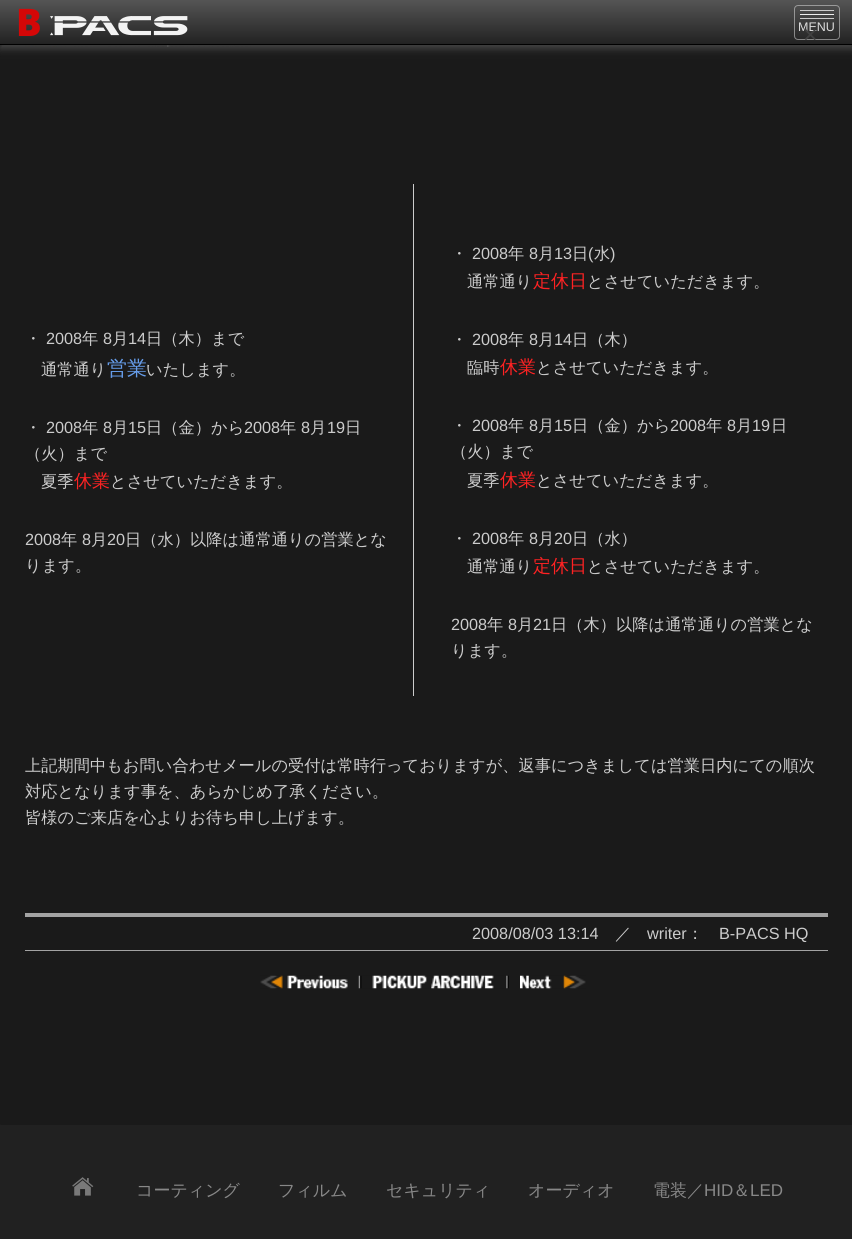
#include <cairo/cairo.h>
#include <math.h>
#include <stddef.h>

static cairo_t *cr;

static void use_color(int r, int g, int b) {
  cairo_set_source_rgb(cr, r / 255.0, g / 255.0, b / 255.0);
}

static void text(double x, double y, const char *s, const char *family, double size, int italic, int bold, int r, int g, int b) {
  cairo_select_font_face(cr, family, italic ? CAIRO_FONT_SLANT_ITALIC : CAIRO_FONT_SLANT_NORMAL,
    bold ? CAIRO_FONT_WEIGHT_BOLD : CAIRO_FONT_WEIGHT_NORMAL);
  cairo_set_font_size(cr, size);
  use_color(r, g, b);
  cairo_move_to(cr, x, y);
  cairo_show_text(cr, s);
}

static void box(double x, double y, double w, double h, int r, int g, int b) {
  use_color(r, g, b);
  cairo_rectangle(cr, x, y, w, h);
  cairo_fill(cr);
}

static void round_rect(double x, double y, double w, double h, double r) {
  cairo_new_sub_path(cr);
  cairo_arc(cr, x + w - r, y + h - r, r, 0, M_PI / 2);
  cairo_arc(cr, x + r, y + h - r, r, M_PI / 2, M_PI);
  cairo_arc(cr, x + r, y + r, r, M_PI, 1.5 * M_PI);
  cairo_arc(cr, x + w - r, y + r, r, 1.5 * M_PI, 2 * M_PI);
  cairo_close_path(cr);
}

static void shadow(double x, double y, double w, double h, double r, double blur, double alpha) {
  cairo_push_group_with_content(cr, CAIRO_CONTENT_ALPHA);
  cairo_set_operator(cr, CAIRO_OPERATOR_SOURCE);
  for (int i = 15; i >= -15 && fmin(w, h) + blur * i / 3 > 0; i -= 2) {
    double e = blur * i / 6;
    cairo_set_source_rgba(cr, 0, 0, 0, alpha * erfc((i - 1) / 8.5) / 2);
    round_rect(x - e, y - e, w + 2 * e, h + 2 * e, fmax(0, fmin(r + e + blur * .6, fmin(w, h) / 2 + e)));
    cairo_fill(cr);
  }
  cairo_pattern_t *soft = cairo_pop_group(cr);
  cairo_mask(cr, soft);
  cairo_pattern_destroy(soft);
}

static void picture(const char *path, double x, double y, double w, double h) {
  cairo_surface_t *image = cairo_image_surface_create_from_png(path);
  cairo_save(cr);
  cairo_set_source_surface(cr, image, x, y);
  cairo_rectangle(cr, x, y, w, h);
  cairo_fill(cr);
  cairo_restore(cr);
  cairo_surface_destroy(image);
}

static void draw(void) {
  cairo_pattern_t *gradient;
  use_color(33, 33, 33);
  cairo_paint(cr);
  cairo_new_path(cr);
  cairo_move_to(cr, 3, -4.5);
  cairo_line_to(cr, 850, -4.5);
  cairo_curve_to(cr, 852, -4.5, 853.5, -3, 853.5, -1);
  cairo_line_to(cr, 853.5, 1122.5);
  cairo_curve_to(cr, 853.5, 1123.5, 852.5, 1124.5, 851.5, 1124.5);
  cairo_line_to(cr, 1.5, 1124.5);
  cairo_curve_to(cr, 0.5, 1124.5, -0.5, 1123.5, -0.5, 1122.5);
  cairo_line_to(cr, -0.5, -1);
  cairo_curve_to(cr, -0.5, -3, 1, -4.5, 3, -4.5);
  cairo_close_path(cr);
  use_color(26, 26, 26);
  cairo_set_line_width(cr, 1);
  cairo_stroke(cr);
  cairo_new_path(cr);
  cairo_move_to(cr, 2.5, -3);
  cairo_line_to(cr, 850.5, -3);
  cairo_curve_to(cr, 852, -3, 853, -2, 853, -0.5);
  cairo_line_to(cr, 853, 1123);
  cairo_curve_to(cr, 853, 1123.5, 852.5, 1124, 852, 1124);
  cairo_line_to(cr, 1, 1124);
  cairo_curve_to(cr, 0.5, 1124, 0, 1123.5, 0, 1123);
  cairo_line_to(cr, 0, -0.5);
  cairo_curve_to(cr, 0, -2, 1, -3, 2.5, -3);
  cairo_close_path(cr);
  cairo_fill(cr);
  picture("img_01.png", 25, 45, 732, 2);
  use_color(68, 68, 68);
  shadow(0, 4, 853, 45, 0, 4, 1);
  gradient = cairo_pattern_create_linear(426, 0, 426, 44);
  cairo_pattern_add_color_stop_rgba(gradient, 0, 0.333, 0.333, 0.333, 1);
  cairo_pattern_add_color_stop_rgba(gradient, 1, 0.133, 0.133, 0.133, 1);
  cairo_set_source(cr, gradient);
  cairo_pattern_destroy(gradient);
  cairo_rectangle(cr, 0, 0, 852, 44);
  cairo_fill(cr);
  box(0, 44, 852, 1, 0, 0, 0);
  round_rect(794.5, 5.5, 45, 34, 3.5);
  cairo_set_source_rgba(cr, 0.902, 0.902, 0.902, 0.5);
  cairo_stroke(cr);
  box(800, 18, 34, 1, 204, 204, 204);
  box(800, 14, 34, 1, 238, 238, 238);
  box(800, 10, 34, 1, 204, 204, 204);
  box(413, 184, 1, 512, 204, 204, 204);
  box(25, 913, 803, 4, 163, 163, 163);
  box(25, 950, 803, 1, 163, 163, 163);
  picture("img_02.png", 260, 975, 88, 14);
  picture("img_03.png", 358, 975, 151, 14);
  picture("img_04.png", 520, 975, 66, 14);
  picture("img_05.png", 72, 1177, 22, 19);
  text(16, 36, "B", "Noto Sans Black", 38, 0, 0, 213, 7, 7);
  text(33, 36, "-", "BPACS", 38, 0, 0, 243, 243, 243);
  text(52, 36, "P", "BPACS", 38, 0, 0, 243, 243, 243);
  text(82, 36, "A", "BPACS", 38, 0, 0, 243, 243, 243);
  text(116, 36, "C", "BPACS", 38, 0, 0, 243, 243, 243);
  text(152, 36, "S", "BPACS", 38, 0, 0, 243, 243, 243);
  text(798, 31, "MENU", "Liberation Sans", 12.5, 0, 0, 221, 221, 221);
  text(803, 43, "×", "Liberation Sans", 25, 0, 0, 65, 65, 65);
  text(25, 344, "・", "WenQuanYi Zen Hei Medium", 16.25, 0, 0, 204, 204, 204);
  text(46, 344, "2008", "Liberation Sans", 16.25, 0, 0, 204, 204, 204);
  text(82, 344, "年", "WenQuanYi Zen Hei Medium", 16.25, 0, 0, 204, 204, 204);
  text(103, 344, "8", "Liberation Sans", 16.25, 0, 0, 204, 204, 204);
  text(112, 344, "月", "WenQuanYi Zen Hei Medium", 16.25, 0, 0, 204, 204, 204);
  text(128, 344, "14", "Liberation Sans", 16.25, 0, 0, 204, 204, 204);
  text(146, 344, "日（木）まで", "WenQuanYi Zen Hei Medium", 16.25, 0, 0, 204, 204, 204);
  text(41, 375, "通常通り", "WenQuanYi Zen Hei Medium", 16.25, 0, 0, 204, 204, 204);
  text(107, 375, "営業", "WenQuanYi Zen Hei Medium", 20, 0, 0, 102, 157, 235);
  text(146, 375, "いたします。", "WenQuanYi Zen Hei Medium", 16.25, 0, 0, 204, 204, 204);
  text(25, 433, "・", "WenQuanYi Zen Hei Medium", 16.25, 0, 0, 204, 204, 204);
  text(46, 433, "2008", "Liberation Sans", 16.25, 0, 0, 204, 204, 204);
  text(82, 433, "年", "WenQuanYi Zen Hei Medium", 16.25, 0, 0, 204, 204, 204);
  text(103, 433, "8", "Liberation Sans", 16.25, 0, 0, 204, 204, 204);
  text(112, 433, "月", "WenQuanYi Zen Hei Medium", 16.25, 0, 0, 204, 204, 204);
  text(128, 433, "15", "Liberation Sans", 16.25, 0, 0, 204, 204, 204);
  text(146, 433, "日（金）から", "WenQuanYi Zen Hei Medium", 16.25, 0, 0, 204, 204, 204);
  text(244, 433, "2008", "Liberation Sans", 16.25, 0, 0, 204, 204, 204);
  text(280, 433, "年", "WenQuanYi Zen Hei Medium", 16.25, 0, 0, 204, 204, 204);
  text(301, 433, "8", "Liberation Sans", 16.25, 0, 0, 204, 204, 204);
  text(310, 433, "月", "WenQuanYi Zen Hei Medium", 16.25, 0, 0, 204, 204, 204);
  text(327, 433, "19", "Liberation Sans", 16.25, 0, 0, 204, 204, 204);
  text(345, 433, "日", "WenQuanYi Zen Hei Medium", 16.25, 0, 0, 204, 204, 204);
  text(25, 459, "（火）まで", "WenQuanYi Zen Hei Medium", 16.25, 0, 0, 204, 204, 204);
  text(41, 487, "夏季", "WenQuanYi Zen Hei Medium", 16.25, 0, 0, 204, 204, 204);
  text(74, 487, "休業", "WenQuanYi Zen Hei Medium", 18, 0, 0, 255, 34, 35);
  text(110, 487, "とさせていただきます。", "WenQuanYi Zen Hei Medium", 16.25, 0, 0, 204, 204, 204);
  text(25, 545, "2008", "Liberation Sans", 16.25, 0, 0, 204, 204, 204);
  text(61, 545, "年", "WenQuanYi Zen Hei Medium", 16.25, 0, 0, 204, 204, 204);
  text(82, 545, "8", "Liberation Sans", 16.25, 0, 0, 204, 204, 204);
  text(91, 545, "月", "WenQuanYi Zen Hei Medium", 16.25, 0, 0, 204, 204, 204);
  text(107, 545, "20", "Liberation Sans", 16.25, 0, 0, 204, 204, 204);
  text(125, 545, "日（水）以降は通常通りの営業とな", "WenQuanYi Zen Hei Medium", 16.25, 0, 0, 204, 204, 204);
  text(25, 571, "ります。", "WenQuanYi Zen Hei Medium", 16.25, 0, 0, 204, 204, 204);
  text(451, 259, "・", "WenQuanYi Zen Hei Medium", 16.25, 0, 0, 204, 204, 204);
  text(472, 259, "2008", "Liberation Sans", 16.25, 0, 0, 204, 204, 204);
  text(508, 259, "年", "WenQuanYi Zen Hei Medium", 16.25, 0, 0, 204, 204, 204);
  text(529, 259, "8", "Liberation Sans", 16.25, 0, 0, 204, 204, 204);
  text(538, 259, "月", "WenQuanYi Zen Hei Medium", 16.25, 0, 0, 204, 204, 204);
  text(554, 259, "13", "Liberation Sans", 16.25, 0, 0, 204, 204, 204);
  text(572, 259, "日", "WenQuanYi Zen Hei Medium", 16.25, 0, 0, 204, 204, 204);
  text(588, 259, "(", "Liberation Sans", 16.25, 0, 0, 204, 204, 204);
  text(594, 259, "水", "WenQuanYi Zen Hei Medium", 16.25, 0, 0, 204, 204, 204);
  text(610, 259, ")", "Liberation Sans", 16.25, 0, 0, 204, 204, 204);
  text(467, 287, "通常通り", "WenQuanYi Zen Hei Medium", 16.25, 0, 0, 204, 204, 204);
  text(533, 287, "定休日", "WenQuanYi Zen Hei Medium", 18, 0, 0, 255, 34, 35);
  text(587, 287, "とさせていただきます。", "WenQuanYi Zen Hei Medium", 16.25, 0, 0, 204, 204, 204);
  text(451, 345, "・", "WenQuanYi Zen Hei Medium", 16.25, 0, 0, 204, 204, 204);
  text(472, 345, "2008", "Liberation Sans", 16.25, 0, 0, 204, 204, 204);
  text(508, 345, "年", "WenQuanYi Zen Hei Medium", 16.25, 0, 0, 204, 204, 204);
  text(529, 345, "8", "Liberation Sans", 16.25, 0, 0, 204, 204, 204);
  text(538, 345, "月", "WenQuanYi Zen Hei Medium", 16.25, 0, 0, 204, 204, 204);
  text(554, 345, "14", "Liberation Sans", 16.25, 0, 0, 204, 204, 204);
  text(572, 345, "日（木）", "WenQuanYi Zen Hei Medium", 16.25, 0, 0, 204, 204, 204);
  text(467, 373, "臨時", "WenQuanYi Zen Hei Medium", 16.25, 0, 0, 204, 204, 204);
  text(500, 373, "休業", "WenQuanYi Zen Hei Medium", 18, 0, 0, 255, 34, 35);
  text(536, 373, "とさせていただきます。", "WenQuanYi Zen Hei Medium", 16.25, 0, 0, 204, 204, 204);
  text(451, 431, "・", "WenQuanYi Zen Hei Medium", 16.25, 0, 0, 204, 204, 204);
  text(472, 431, "2008", "Liberation Sans", 16.25, 0, 0, 204, 204, 204);
  text(508, 431, "年", "WenQuanYi Zen Hei Medium", 16.25, 0, 0, 204, 204, 204);
  text(529, 431, "8", "Liberation Sans", 16.25, 0, 0, 204, 204, 204);
  text(538, 431, "月", "WenQuanYi Zen Hei Medium", 16.25, 0, 0, 204, 204, 204);
  text(554, 431, "15", "Liberation Sans", 16.25, 0, 0, 204, 204, 204);
  text(572, 431, "日（金）から", "WenQuanYi Zen Hei Medium", 16.25, 0, 0, 204, 204, 204);
  text(670, 431, "2008", "Liberation Sans", 16.25, 0, 0, 204, 204, 204);
  text(706, 431, "年", "WenQuanYi Zen Hei Medium", 16.25, 0, 0, 204, 204, 204);
  text(727, 431, "8", "Liberation Sans", 16.25, 0, 0, 204, 204, 204);
  text(736, 431, "月", "WenQuanYi Zen Hei Medium", 16.25, 0, 0, 204, 204, 204);
  text(752, 431, "19", "Liberation Sans", 16.25, 0, 0, 204, 204, 204);
  text(771, 431, "日", "WenQuanYi Zen Hei Medium", 16.25, 0, 0, 204, 204, 204);
  text(451, 457, "（火）まで", "WenQuanYi Zen Hei Medium", 16.25, 0, 0, 204, 204, 204);
  text(467, 486, "夏季", "WenQuanYi Zen Hei Medium", 16.25, 0, 0, 204, 204, 204);
  text(500, 486, "休業", "WenQuanYi Zen Hei Medium", 18, 0, 0, 255, 34, 35);
  text(536, 486, "とさせていただきます。", "WenQuanYi Zen Hei Medium", 16.25, 0, 0, 204, 204, 204);
  text(451, 544, "・", "WenQuanYi Zen Hei Medium", 16.25, 0, 0, 204, 204, 204);
  text(472, 544, "2008", "Liberation Sans", 16.25, 0, 0, 204, 204, 204);
  text(508, 544, "年", "WenQuanYi Zen Hei Medium", 16.25, 0, 0, 204, 204, 204);
  text(529, 544, "8", "Liberation Sans", 16.25, 0, 0, 204, 204, 204);
  text(538, 544, "月", "WenQuanYi Zen Hei Medium", 16.25, 0, 0, 204, 204, 204);
  text(554, 544, "20", "Liberation Sans", 16.25, 0, 0, 204, 204, 204);
  text(572, 544, "日（水）", "WenQuanYi Zen Hei Medium", 16.25, 0, 0, 204, 204, 204);
  text(467, 572, "通常通り", "WenQuanYi Zen Hei Medium", 16.25, 0, 0, 204, 204, 204);
  text(533, 572, "定休日", "WenQuanYi Zen Hei Medium", 18, 0, 0, 255, 34, 35);
  text(587, 572, "とさせていただきます。", "WenQuanYi Zen Hei Medium", 16.25, 0, 0, 204, 204, 204);
  text(451, 630, "2008", "Liberation Sans", 16.25, 0, 0, 204, 204, 204);
  text(487, 630, "年", "WenQuanYi Zen Hei Medium", 16.25, 0, 0, 204, 204, 204);
  text(508, 630, "8", "Liberation Sans", 16.25, 0, 0, 204, 204, 204);
  text(517, 630, "月", "WenQuanYi Zen Hei Medium", 16.25, 0, 0, 204, 204, 204);
  text(533, 630, "21", "Liberation Sans", 16.25, 0, 0, 204, 204, 204);
  text(551, 630, "日（木）以降は通常通りの営業とな", "WenQuanYi Zen Hei Medium", 16.25, 0, 0, 204, 204, 204);
  text(451, 656, "ります。", "WenQuanYi Zen Hei Medium", 16.25, 0, 0, 204, 204, 204);
  text(25, 771, "上記期間中もお問い合わせメールの受付は常時行っておりますが、返事につきましては営業日内にての順次", "WenQuanYi Zen Hei Medium", 16.25, 0, 0, 204, 204, 204);
  text(25, 797, "対応となります事を、あらかじめ了承ください。", "WenQuanYi Zen Hei Medium", 16.25, 0, 0, 204, 204, 204);
  text(25, 823, "皆様のご来店を心よりお待ち申し上げます。", "WenQuanYi Zen Hei Medium", 16.25, 0, 0, 204, 204, 204);
  text(472, 939, "2008/08/03 13:14", "Liberation Sans", 16.25, 0, 0, 204, 204, 204);
  text(615, 939, "／", "WenQuanYi Zen Hei Medium", 16.25, 0, 0, 204, 204, 204);
  text(647, 939, "writer", "Liberation Sans", 16.25, 0, 0, 204, 204, 204);
  text(687, 939, "：", "WenQuanYi Zen Hei Medium", 16.25, 0, 0, 204, 204, 204);
  text(719, 939, "B-PACS HQ", "Liberation Sans", 16.25, 0, 0, 204, 204, 204);
  text(136, 1196, "コーティング", "WenQuanYi Zen Hei Medium", 17, 0, 0, 136, 136, 136);
  text(278, 1196, "フィルム", "WenQuanYi Zen Hei Medium", 17, 0, 0, 136, 136, 136);
  text(386, 1196, "セキュリティ", "WenQuanYi Zen Hei Medium", 17, 0, 0, 136, 136, 136);
  text(528, 1196, "オーディオ", "WenQuanYi Zen Hei Medium", 17, 0, 0, 136, 136, 136);
  text(653, 1196, "電装／", "WenQuanYi Zen Hei Medium", 17, 0, 0, 136, 136, 136);
  text(704, 1196, "HID", "Liberation Sans", 17, 0, 0, 136, 136, 136);
  text(733, 1196, "＆", "WenQuanYi Zen Hei Medium", 17, 0, 0, 136, 136, 136);
  text(750, 1196, "LED", "Liberation Sans", 17, 0, 0, 136, 136, 136);
}

int main(void) {
  cairo_surface_t *surface = cairo_image_surface_create(CAIRO_FORMAT_RGB24, 852, 1239);
  cr = cairo_create(surface);
  cairo_font_options_t *options = cairo_font_options_create();
  cairo_font_options_set_hint_metrics(options, CAIRO_HINT_METRICS_OFF);
  cairo_font_options_set_hint_style(options, CAIRO_HINT_STYLE_NONE);
  cairo_set_font_options(cr, options);
  cairo_set_miter_limit(cr, 4);
  draw();
  cairo_surface_write_to_png(surface, "out.png");
  cairo_font_options_destroy(options);
  cairo_destroy(cr);
  cairo_surface_destroy(surface);
  return 0;
}
